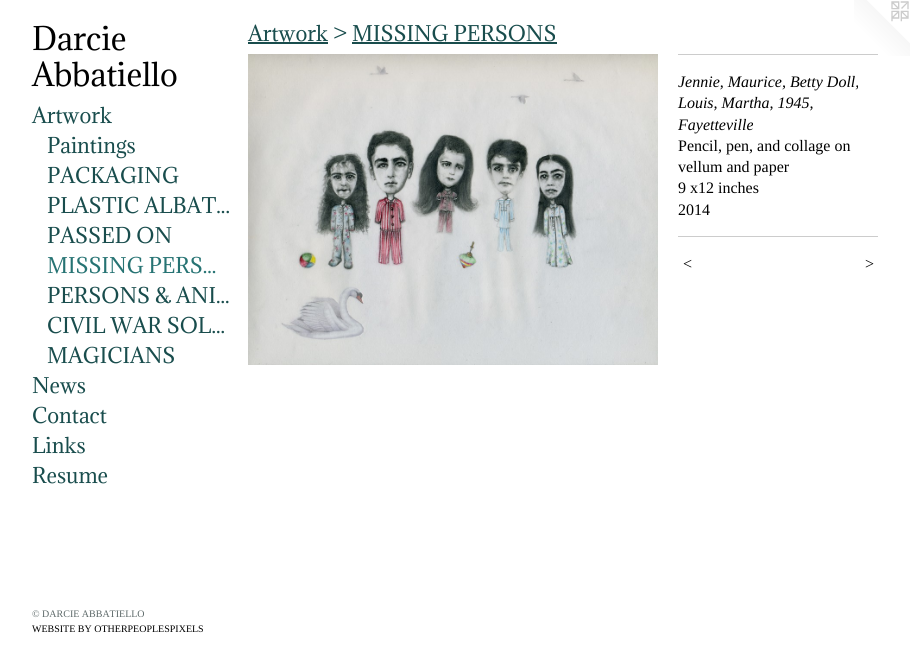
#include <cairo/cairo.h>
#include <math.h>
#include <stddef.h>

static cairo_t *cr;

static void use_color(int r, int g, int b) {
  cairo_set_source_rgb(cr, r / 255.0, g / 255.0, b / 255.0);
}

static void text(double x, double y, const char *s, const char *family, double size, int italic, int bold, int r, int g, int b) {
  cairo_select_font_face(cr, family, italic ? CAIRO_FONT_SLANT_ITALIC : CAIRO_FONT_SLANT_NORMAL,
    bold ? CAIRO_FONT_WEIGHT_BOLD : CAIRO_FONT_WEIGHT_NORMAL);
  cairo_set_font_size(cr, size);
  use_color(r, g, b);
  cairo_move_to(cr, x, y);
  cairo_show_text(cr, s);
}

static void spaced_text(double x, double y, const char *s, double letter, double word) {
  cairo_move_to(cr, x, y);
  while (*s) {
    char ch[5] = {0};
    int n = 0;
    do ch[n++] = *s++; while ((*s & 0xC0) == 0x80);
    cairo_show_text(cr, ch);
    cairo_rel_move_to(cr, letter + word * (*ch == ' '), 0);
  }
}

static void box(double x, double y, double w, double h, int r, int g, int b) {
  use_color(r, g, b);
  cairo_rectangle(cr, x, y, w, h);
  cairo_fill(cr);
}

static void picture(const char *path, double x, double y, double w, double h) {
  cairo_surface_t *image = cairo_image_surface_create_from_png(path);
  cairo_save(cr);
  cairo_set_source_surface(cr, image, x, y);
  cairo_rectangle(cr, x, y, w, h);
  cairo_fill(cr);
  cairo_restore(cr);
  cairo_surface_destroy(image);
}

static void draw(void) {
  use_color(255, 255, 255);
  cairo_paint(cr);
  box(248, 42, 80, 2, 25, 77, 77);
  box(352, 42, 205, 2, 25, 77, 77);
  picture("img_01.png", 248, 54, 410, 311);
  picture("img_02.png", 854, 0, 56, 56);
  box(678, 54, 200, 1, 204, 204, 204);
  box(678, 236, 200, 1, 204, 204, 204);
  text(32, 50, "Darcie", "Adamina", 30, 0, 0, 0, 0, 0);
  text(32, 86, "Abbatiello", "Adamina", 30, 0, 0, 0, 0, 0);
  text(32, 123, "Artwork", "Adamina", 20, 0, 0, 25, 77, 77);
  text(47, 153, "Paintings", "Adamina", 20, 0, 0, 25, 77, 77);
  text(47, 183, "PACKAGING", "Adamina", 20, 0, 0, 25, 77, 77);
  text(47, 213, "PLASTIC ALBAT...", "Adamina", 20, 0, 0, 25, 77, 77);
  text(47, 243, "PASSED ON", "Adamina", 20, 0, 0, 25, 77, 77);
  text(47, 273, "MISSING PERS...", "Adamina", 20, 0, 0, 38, 115, 115);
  text(47, 303, "PERSONS & ANI...", "Adamina", 20, 0, 0, 25, 77, 77);
  text(47, 333, "CIVIL WAR SOL...", "Adamina", 20, 0, 0, 25, 77, 77);
  text(47, 363, "MAGICIANS", "Adamina", 20, 0, 0, 25, 77, 77);
  text(32, 393, "News", "Adamina", 20, 0, 0, 25, 77, 77);
  text(32, 423, "Contact", "Adamina", 20, 0, 0, 25, 77, 77);
  text(32, 453, "Links", "Adamina", 20, 0, 0, 25, 77, 77);
  text(32, 483, "Resume", "Adamina", 20, 0, 0, 25, 77, 77);
  text(32, 617, "© DARCIE ABBATIELLO", "Liberation Serif", 10, 0, 0, 93, 105, 105);
  text(32, 632, "WEBSITE BY OTHERPEOPLESPIXELS", "Liberation Serif", 10, 0, 0, 0, 0, 0);
  text(248, 41, "Artwork > MISSING PERSONS", "Adamina", 20, 0, 0, 25, 77, 77);
  text(678, 87, "Jennie, Maurice, Betty Doll,", "Liberation Serif", 16, 1, 0, 0, 0, 0);
  text(678, 108, "Louis, Martha, 1945,", "Liberation Serif", 16, 1, 0, 0, 0, 0);
  text(678, 130, "Fayetteville", "Liberation Serif", 16, 1, 0, 0, 0, 0);
  text(678, 151, "Pencil, pen, and collage on", "Liberation Serif", 16, 0, 0, 0, 0, 0);
  text(678, 172, "vellum and paper", "Liberation Serif", 16, 0, 0, 0, 0, 0);
  text(678, 193, "9 x12 inches", "Liberation Serif", 16, 0, 0, 0, 0, 0);
  text(678, 215, "2014", "Liberation Serif", 16, 0, 0, 0, 0, 0);
  cairo_select_font_face(cr, "Liberation Serif", CAIRO_FONT_SLANT_ITALIC, CAIRO_FONT_WEIGHT_NORMAL);
  spaced_text(682, 269, "<", 1, 0);
  spaced_text(864, 269, ">", 1, 0);
}

int main(void) {
  cairo_surface_t *surface = cairo_image_surface_create(CAIRO_FORMAT_RGB24, 910, 659);
  cr = cairo_create(surface);
  cairo_font_options_t *options = cairo_font_options_create();
  cairo_font_options_set_hint_metrics(options, CAIRO_HINT_METRICS_OFF);
  cairo_font_options_set_hint_style(options, CAIRO_HINT_STYLE_NONE);
  cairo_set_font_options(cr, options);
  cairo_set_miter_limit(cr, 4);
  draw();
  cairo_surface_write_to_png(surface, "out.png");
  cairo_font_options_destroy(options);
  cairo_destroy(cr);
  cairo_surface_destroy(surface);
  return 0;
}
